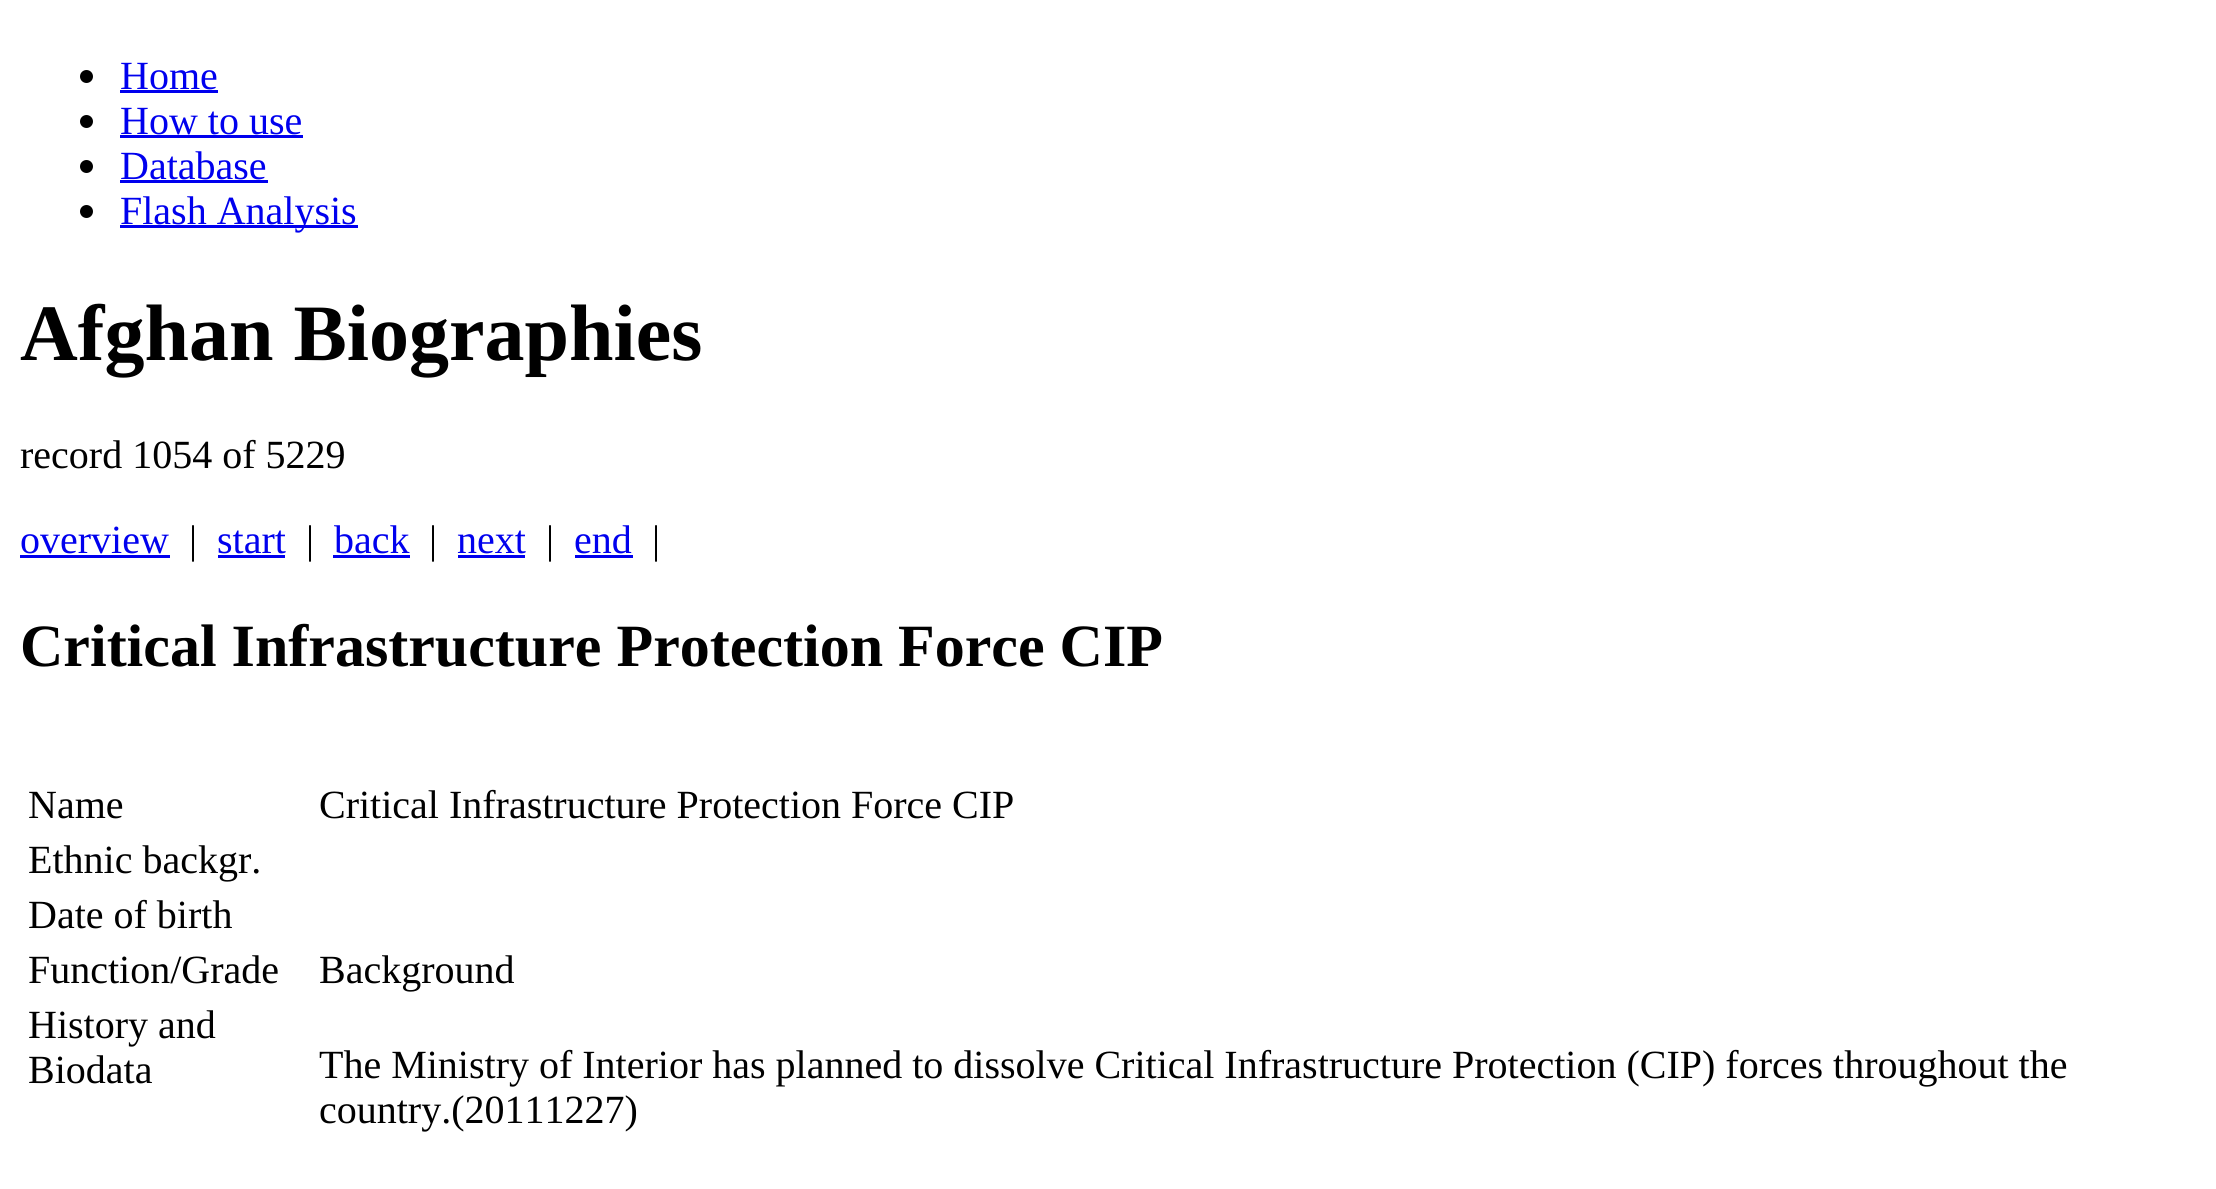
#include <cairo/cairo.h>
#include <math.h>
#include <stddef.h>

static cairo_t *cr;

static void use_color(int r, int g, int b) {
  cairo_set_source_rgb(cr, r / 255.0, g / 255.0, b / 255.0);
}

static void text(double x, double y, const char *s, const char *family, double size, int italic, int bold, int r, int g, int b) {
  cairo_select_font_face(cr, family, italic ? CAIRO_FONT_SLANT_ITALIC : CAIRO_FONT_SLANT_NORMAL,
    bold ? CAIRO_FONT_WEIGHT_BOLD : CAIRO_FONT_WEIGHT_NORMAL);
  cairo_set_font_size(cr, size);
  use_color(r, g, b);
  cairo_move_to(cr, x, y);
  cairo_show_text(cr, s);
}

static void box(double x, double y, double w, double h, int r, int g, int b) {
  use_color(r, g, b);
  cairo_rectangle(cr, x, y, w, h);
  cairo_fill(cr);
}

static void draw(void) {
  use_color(255, 255, 255);
  cairo_paint(cr);
  use_color(0, 0, 0);
  cairo_arc(cr, 86.5, 76.5, 6.5, 0, 2 * M_PI);
  cairo_fill(cr);
  box(120, 90, 98, 3, 0, 0, 238);
  use_color(0, 0, 0);
  cairo_arc(cr, 86.5, 121.5, 6.5, 0, 2 * M_PI);
  cairo_fill(cr);
  box(120, 135, 183, 3, 0, 0, 238);
  use_color(0, 0, 0);
  cairo_arc(cr, 86.5, 166.5, 6.5, 0, 2 * M_PI);
  cairo_fill(cr);
  box(120, 180, 148, 3, 0, 0, 238);
  use_color(0, 0, 0);
  cairo_arc(cr, 86.5, 211.5, 6.5, 0, 2 * M_PI);
  cairo_fill(cr);
  box(120, 225, 238, 3, 0, 0, 238);
  box(20, 555, 150, 3, 0, 0, 238);
  box(218, 555, 67, 3, 0, 0, 238);
  box(333, 555, 77, 3, 0, 0, 238);
  box(458, 555, 67, 3, 0, 0, 238);
  box(575, 555, 58, 3, 0, 0, 238);
  text(120, 89, "Home", "Liberation Serif", 40, 0, 0, 0, 0, 238);
  text(120, 134, "How to use", "Liberation Serif", 40, 0, 0, 0, 0, 238);
  text(120, 179, "Database", "Liberation Serif", 40, 0, 0, 0, 0, 238);
  text(120, 224, "Flash Analysis", "Liberation Serif", 40, 0, 0, 0, 0, 238);
  text(20, 360, "Afghan Biographies", "Liberation Serif", 80, 0, 1, 0, 0, 0);
  text(20, 468, "record 1054 of 5229", "Liberation Serif", 40, 0, 0, 0, 0, 0);
  text(20, 553, "overview", "Liberation Serif", 40, 0, 0, 0, 0, 238);
  text(189, 553, "|", "Liberation Serif", 40, 0, 0, 0, 0, 0);
  text(217, 553, "start", "Liberation Serif", 40, 0, 0, 0, 0, 238);
  text(306, 553, "|", "Liberation Serif", 40, 0, 0, 0, 0, 0);
  text(334, 553, "back", "Liberation Serif", 40, 0, 0, 0, 0, 238);
  text(429, 553, "|", "Liberation Serif", 40, 0, 0, 0, 0, 0);
  text(457, 553, "next", "Liberation Serif", 40, 0, 0, 0, 0, 238);
  text(546, 553, "|", "Liberation Serif", 40, 0, 0, 0, 0, 0);
  text(574, 553, "end", "Liberation Serif", 40, 0, 0, 0, 0, 238);
  text(652, 553, "|", "Liberation Serif", 40, 0, 0, 0, 0, 0);
  text(20, 666, "Critical Infrastructure Protection Force CIP", "Liberation Serif", 60, 0, 1, 0, 0, 0);
  text(28, 818, "Name", "Liberation Serif", 40, 0, 0, 0, 0, 0);
  text(319, 818, "Critical Infrastructure Protection Force CIP", "Liberation Serif", 40, 0, 0, 0, 0, 0);
  text(28, 873, "Ethnic backgr.", "Liberation Serif", 40, 0, 0, 0, 0, 0);
  text(28, 928, "Date of birth", "Liberation Serif", 40, 0, 0, 0, 0, 0);
  text(28, 983, "Function/Grade", "Liberation Serif", 40, 0, 0, 0, 0, 0);
  text(319, 983, "Background", "Liberation Serif", 40, 0, 0, 0, 0, 0);
  text(28, 1038, "History and", "Liberation Serif", 40, 0, 0, 0, 0, 0);
  text(28, 1083, "Biodata", "Liberation Serif", 40, 0, 0, 0, 0, 0);
  text(319, 1078, "The Ministry of Interior has planned to dissolve Critical Infrastructure Protection (CIP) forces throughout the", "Liberation Serif", 40, 0, 0, 0, 0, 0);
  text(319, 1123, "country.(20111227)", "Liberation Serif", 40, 0, 0, 0, 0, 0);
}

int main(void) {
  cairo_surface_t *surface = cairo_image_surface_create(CAIRO_FORMAT_RGB24, 2216, 1189);
  cr = cairo_create(surface);
  cairo_font_options_t *options = cairo_font_options_create();
  cairo_font_options_set_hint_metrics(options, CAIRO_HINT_METRICS_OFF);
  cairo_font_options_set_hint_style(options, CAIRO_HINT_STYLE_NONE);
  cairo_set_font_options(cr, options);
  cairo_set_miter_limit(cr, 4);
  draw();
  cairo_surface_write_to_png(surface, "out.png");
  cairo_font_options_destroy(options);
  cairo_destroy(cr);
  cairo_surface_destroy(surface);
  return 0;
}
